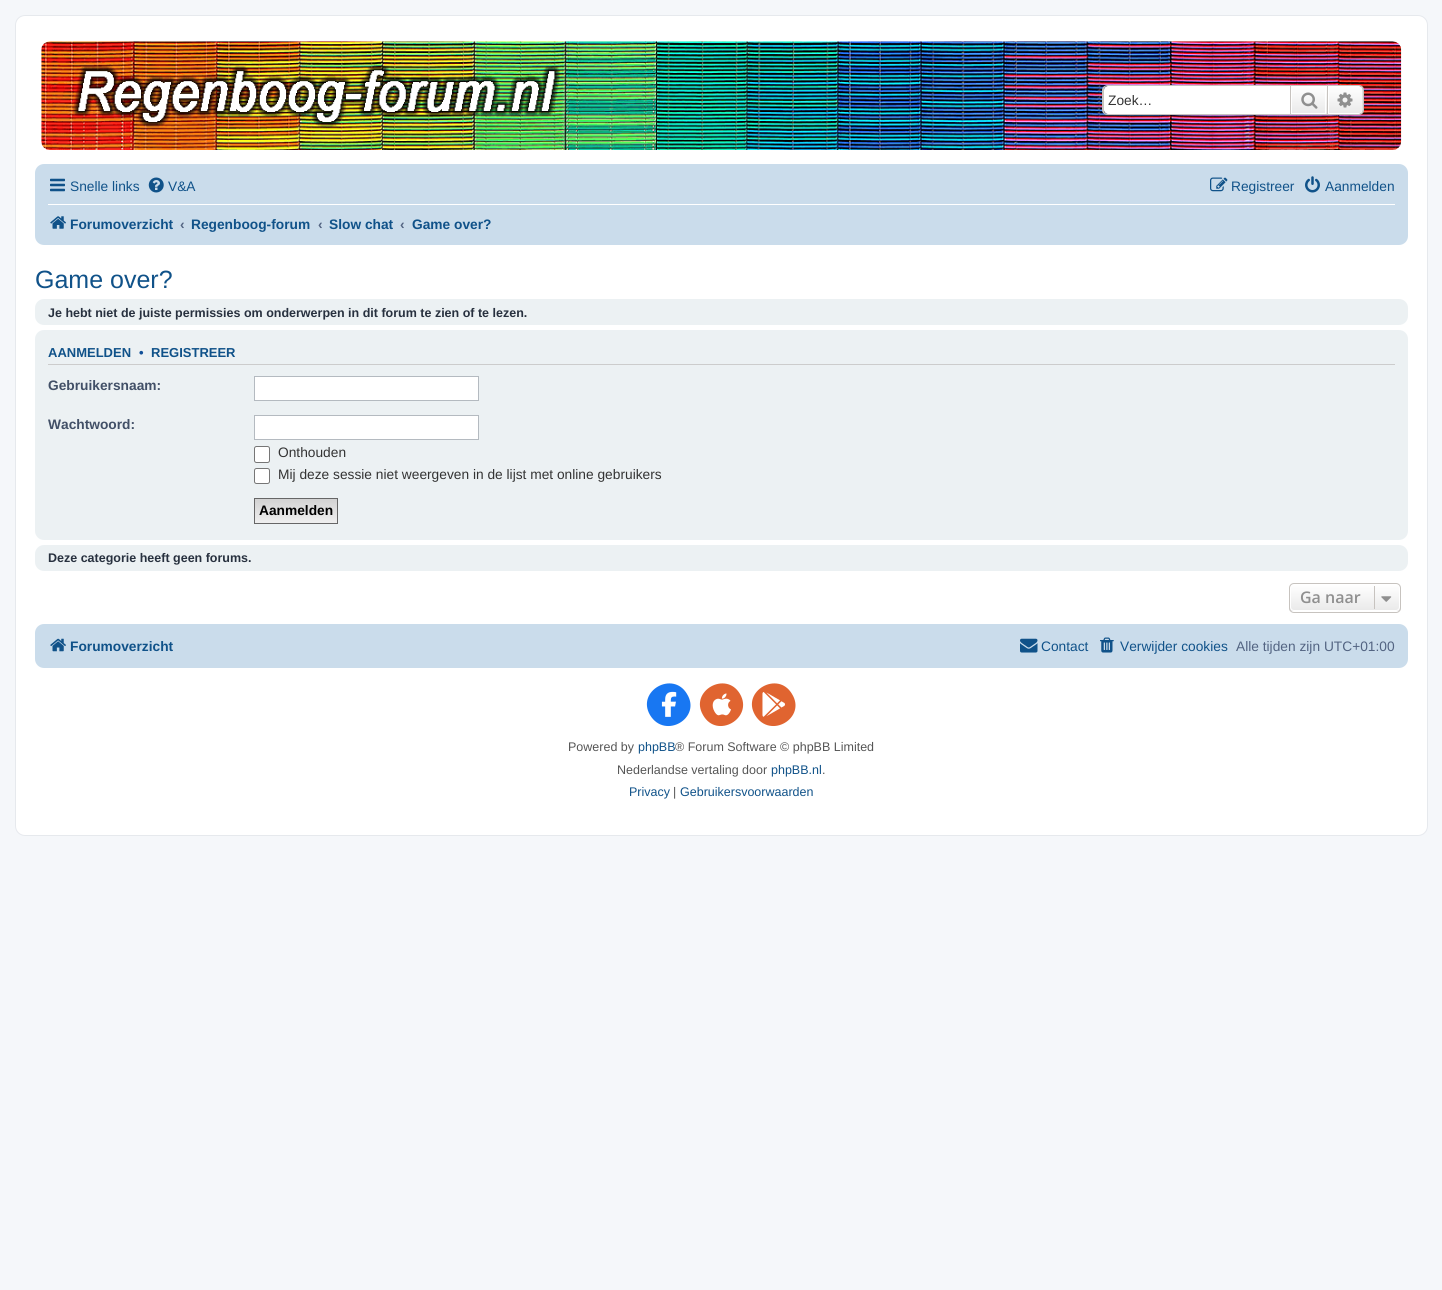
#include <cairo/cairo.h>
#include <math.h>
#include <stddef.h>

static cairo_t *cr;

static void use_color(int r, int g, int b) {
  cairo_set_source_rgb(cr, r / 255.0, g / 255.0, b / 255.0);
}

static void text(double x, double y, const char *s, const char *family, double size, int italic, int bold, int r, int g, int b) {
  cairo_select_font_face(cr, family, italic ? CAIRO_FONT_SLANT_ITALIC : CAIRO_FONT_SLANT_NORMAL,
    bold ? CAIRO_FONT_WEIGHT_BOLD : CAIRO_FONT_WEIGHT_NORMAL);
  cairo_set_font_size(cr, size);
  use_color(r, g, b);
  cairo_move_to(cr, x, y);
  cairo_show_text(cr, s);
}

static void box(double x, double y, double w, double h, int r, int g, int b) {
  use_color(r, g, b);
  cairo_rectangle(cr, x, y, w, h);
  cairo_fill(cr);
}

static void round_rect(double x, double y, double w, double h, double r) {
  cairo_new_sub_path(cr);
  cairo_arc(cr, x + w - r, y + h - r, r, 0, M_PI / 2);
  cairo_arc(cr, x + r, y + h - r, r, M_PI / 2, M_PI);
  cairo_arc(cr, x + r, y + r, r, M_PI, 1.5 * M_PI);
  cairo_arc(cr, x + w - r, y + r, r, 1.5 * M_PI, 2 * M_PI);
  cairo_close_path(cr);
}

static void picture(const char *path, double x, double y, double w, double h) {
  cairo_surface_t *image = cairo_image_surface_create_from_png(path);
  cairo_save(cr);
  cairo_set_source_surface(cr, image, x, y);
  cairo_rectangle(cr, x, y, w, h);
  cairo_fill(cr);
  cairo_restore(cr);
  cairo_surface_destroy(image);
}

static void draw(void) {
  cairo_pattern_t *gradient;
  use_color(245, 247, 250);
  cairo_paint(cr);
  use_color(255, 255, 255);
  round_rect(15.5, 15.5, 1412, 820, 9.5);
  cairo_fill_preserve(cr);
  use_color(230, 233, 237);
  cairo_set_line_width(cr, 1);
  cairo_stroke(cr);
  picture("img_01.png", 41, 41, 1361, 109);
  use_color(255, 255, 255);
  cairo_new_path(cr);
  cairo_move_to(cr, 1108, 86);
  cairo_line_to(cr, 1290, 86);
  cairo_line_to(cr, 1290, 114);
  cairo_line_to(cr, 1108, 114);
  cairo_curve_to(cr, 1106, 114, 1104, 112, 1104, 110);
  cairo_line_to(cr, 1104, 90);
  cairo_curve_to(cr, 1104, 88, 1106, 86, 1108, 86);
  cairo_close_path(cr);
  cairo_fill(cr);
  use_color(199, 195, 191);
  cairo_set_fill_rule(cr, CAIRO_FILL_RULE_EVEN_ODD);
  cairo_new_path(cr);
  cairo_move_to(cr, 1108, 85);
  cairo_line_to(cr, 1290, 85);
  cairo_line_to(cr, 1290, 115);
  cairo_line_to(cr, 1108, 115);
  cairo_curve_to(cr, 1105, 115, 1102, 113, 1102, 110);
  cairo_line_to(cr, 1102, 90);
  cairo_curve_to(cr, 1102, 87, 1105, 85, 1108, 85);
  cairo_close_path(cr);
  cairo_move_to(cr, 1108, 86);
  cairo_line_to(cr, 1290, 86);
  cairo_line_to(cr, 1290, 114);
  cairo_line_to(cr, 1108, 114);
  cairo_curve_to(cr, 1105, 114, 1104, 112, 1104, 110);
  cairo_line_to(cr, 1104, 90);
  cairo_curve_to(cr, 1104, 88, 1105, 86, 1108, 86);
  cairo_close_path(cr);
  cairo_fill(cr);
  gradient = cairo_pattern_create_linear(1309, 86, 1309, 114);
  cairo_pattern_add_color_stop_rgba(gradient, 0, 1, 1, 1, 1);
  cairo_pattern_add_color_stop_rgba(gradient, 1, 0.914, 0.914, 0.914, 1);
  cairo_set_source(cr, gradient);
  cairo_pattern_destroy(gradient);
  cairo_rectangle(cr, 1292, 86, 35, 28);
  cairo_fill(cr);
  cairo_rectangle(cr, 1291.5, 86.5, 34, 27);
  use_color(255, 255, 255);
  cairo_stroke(cr);
  cairo_rectangle(cr, 1290.5, 85.5, 37, 29);
  use_color(199, 195, 191);
  cairo_stroke(cr);
  picture("img_02.png", 1301, 92, 17, 17);
  gradient = cairo_pattern_create_linear(1345, 86, 1345, 114);
  cairo_pattern_add_color_stop_rgba(gradient, 0, 1, 1, 1, 1);
  cairo_pattern_add_color_stop_rgba(gradient, 1, 0.914, 0.914, 0.914, 1);
  cairo_set_source(cr, gradient);
  cairo_pattern_destroy(gradient);
  cairo_new_path(cr);
  cairo_move_to(cr, 1328.5, 86.5);
  cairo_line_to(cr, 1359, 86.5);
  cairo_curve_to(cr, 1361, 86.5, 1362.5, 88, 1362.5, 90);
  cairo_line_to(cr, 1362.5, 110);
  cairo_curve_to(cr, 1362.5, 112, 1361, 113.5, 1359, 113.5);
  cairo_line_to(cr, 1328.5, 113.5);
  cairo_close_path(cr);
  cairo_fill_preserve(cr);
  use_color(255, 255, 255);
  cairo_stroke(cr);
  use_color(199, 195, 191);
  cairo_new_path(cr);
  cairo_move_to(cr, 1327.5, 85);
  cairo_line_to(cr, 1359, 85);
  cairo_curve_to(cr, 1361.5, 85, 1364, 87, 1364, 90);
  cairo_line_to(cr, 1364, 110);
  cairo_curve_to(cr, 1364, 113, 1361.5, 115, 1359, 115);
  cairo_line_to(cr, 1327.5, 115);
  cairo_close_path(cr);
  cairo_move_to(cr, 1327.5, 86);
  cairo_line_to(cr, 1359, 86);
  cairo_curve_to(cr, 1361, 86, 1362.5, 88, 1362.5, 90);
  cairo_line_to(cr, 1362.5, 110);
  cairo_curve_to(cr, 1362.5, 112, 1361, 114, 1359, 114);
  cairo_line_to(cr, 1327.5, 114);
  cairo_close_path(cr);
  cairo_fill(cr);
  picture("img_03.png", 1337, 92, 16, 16);
  use_color(202, 220, 235);
  round_rect(35, 164, 1373, 81, 9);
  cairo_fill(cr);
  picture("img_04.png", 50, 178, 15, 14);
  picture("img_05.png", 148, 177, 16, 16);
  picture("img_06.png", 1210, 177, 18, 15);
  picture("img_07.png", 1305, 176, 15, 17);
  box(48, 204, 1347, 1, 255, 255, 255);
  picture("img_08.png", 50, 216, 16, 13);
  use_color(236, 241, 243);
  round_rect(35, 299, 1373, 26, 9);
  cairo_fill(cr);
  round_rect(35, 330, 1373, 210, 9);
  cairo_fill(cr);
  box(48, 364, 1347, 1, 204, 204, 204);
  use_color(255, 255, 255);
  cairo_rectangle(cr, 254.5, 376.5, 224, 24);
  cairo_fill_preserve(cr);
  use_color(180, 186, 192);
  cairo_stroke(cr);
  use_color(255, 255, 255);
  cairo_rectangle(cr, 254.5, 415.5, 224, 24);
  cairo_fill_preserve(cr);
  use_color(180, 186, 192);
  cairo_stroke(cr);
  use_color(255, 255, 255);
  round_rect(254.5, 446.5, 15, 16, 2);
  cairo_fill_preserve(cr);
  use_color(118, 118, 118);
  cairo_stroke(cr);
  use_color(255, 255, 255);
  round_rect(254.5, 468.5, 15, 15, 2);
  cairo_fill_preserve(cr);
  use_color(118, 118, 118);
  cairo_stroke(cr);
  gradient = cairo_pattern_create_linear(296, 499, 296, 523);
  cairo_pattern_add_color_stop_rgba(gradient, 0, 0.824, 0.824, 0.824, 1);
  cairo_pattern_add_color_stop_rgba(gradient, 1, 0.937, 0.937, 0.937, 1);
  cairo_set_source(cr, gradient);
  cairo_pattern_destroy(gradient);
  cairo_rectangle(cr, 255, 499, 82, 24);
  cairo_fill(cr);
  cairo_rectangle(cr, 254.5, 498.5, 83, 25);
  use_color(102, 102, 102);
  cairo_stroke(cr);
  use_color(236, 241, 243);
  round_rect(35, 545, 1373, 26, 9);
  cairo_fill(cr);
  cairo_save(cr);
  cairo_set_fill_rule(cr, CAIRO_FILL_RULE_WINDING);
  round_rect(1289, 583, 112, 30, 5);
  cairo_clip(cr);
  gradient = cairo_pattern_create_linear(1345, 584, 1345, 611);
  cairo_pattern_add_color_stop_rgba(gradient, 0, 1, 1, 1, 1);
  cairo_pattern_add_color_stop_rgba(gradient, 1, 0.914, 0.914, 0.914, 1);
  cairo_set_source(cr, gradient);
  cairo_pattern_destroy(gradient);
  cairo_rectangle(cr, 1289, 584, 112, 27);
  cairo_fill(cr);
  cairo_restore(cr);
  round_rect(1290.5, 584.5, 109, 26, 3.5);
  use_color(255, 255, 255);
  cairo_stroke(cr);
  round_rect(1289.5, 583.5, 111, 29, 4.5);
  use_color(199, 195, 191);
  cairo_stroke(cr);
  box(1374, 586, 1, 23, 199, 195, 191);
  picture("img_09.png", 1381, 596, 11, 6);
  use_color(202, 220, 235);
  round_rect(35, 624, 1373, 44, 9);
  cairo_fill(cr);
  picture("img_10.png", 50, 638, 16, 14);
  picture("img_11.png", 1020, 638, 18, 15);
  picture("img_12.png", 1100, 637, 14, 16);
  use_color(24, 119, 242);
  cairo_set_fill_rule(cr, CAIRO_FILL_RULE_WINDING);
  cairo_new_path(cr);
  cairo_move_to(cr, 687, 694);
  cairo_curve_to(cr, 702, 718, 665, 740, 650, 715);
  cairo_curve_to(cr, 636, 691, 673, 670, 687, 694);
  cairo_close_path(cr);
  cairo_fill(cr);
  picture("img_13.png", 661, 691, 16, 26);
  use_color(224, 100, 48);
  cairo_new_path(cr);
  cairo_move_to(cr, 740, 694);
  cairo_curve_to(cr, 754, 718, 717, 740, 703, 715);
  cairo_curve_to(cr, 689, 691, 726, 670, 740, 694);
  cairo_close_path(cr);
  cairo_fill(cr);
  picture("img_14.png", 712, 693, 19, 23);
  cairo_new_path(cr);
  cairo_move_to(cr, 792, 694);
  cairo_curve_to(cr, 807, 718, 770, 740, 755, 715);
  cairo_curve_to(cr, 741, 691, 778, 670, 792, 694);
  cairo_close_path(cr);
  cairo_fill(cr);
  picture("img_15.png", 762, 692, 23, 25);
  text(1108, 105, "Zoek…", "Liberation Sans", 13.75, 0, 0, 51, 51, 51);
  text(70, 191, "Snelle links", "Liberation Sans", 13.75, 0, 0, 16, 82, 137);
  text(168, 191, "V&A", "Liberation Sans", 13.75, 0, 0, 16, 82, 137);
  text(1231, 191, "Registreer", "Liberation Sans", 13.75, 0, 0, 16, 82, 137);
  text(1325, 191, "Aanmelden", "Liberation Sans", 13.75, 0, 0, 16, 82, 137);
  text(70, 229, "Forumoverzicht", "Liberation Sans", 13.75, 0, 1, 16, 82, 137);
  text(180, 229, "‹", "Liberation Sans", 13.75, 0, 1, 83, 100, 130);
  text(191, 229, "Regenboog-forum", "Liberation Sans", 13.75, 0, 1, 16, 82, 137);
  text(318, 229, "‹", "Liberation Sans", 13.75, 0, 1, 83, 100, 130);
  text(329, 229, "Slow chat", "Liberation Sans", 13.75, 0, 1, 16, 82, 137);
  text(400, 229, "‹", "Liberation Sans", 13.75, 0, 1, 83, 100, 130);
  text(412, 229, "Game over?", "Liberation Sans", 13.75, 0, 1, 16, 82, 137);
  text(35, 288, "Game over?", "Liberation Sans", 25, 0, 0, 16, 82, 137);
  text(48, 317, "Je hebt niet de juiste permissies om onderwerpen in dit forum te zien of te lezen.", "Liberation Sans", 12.5, 0, 1, 40, 49, 63);
  text(48, 357, "AANMELDEN", "Liberation Sans", 13, 0, 1, 16, 82, 137);
  text(139, 357, "•", "Liberation Sans", 13, 0, 1, 17, 80, 152);
  text(151, 357, "REGISTREER", "Liberation Sans", 13, 0, 1, 16, 82, 137);
  text(48, 390, "Gebruikersnaam:", "Liberation Sans", 13.75, 0, 1, 66, 80, 103);
  text(48, 429, "Wachtwoord:", "Liberation Sans", 13.75, 0, 1, 66, 80, 103);
  text(278, 457, "Onthouden", "Liberation Sans", 13.75, 0, 0, 51, 51, 51);
  text(278, 479, "Mij deze sessie niet weergeven in de lijst met online gebruikers", "Liberation Sans", 13.75, 0, 0, 51, 51, 51);
  text(259, 515, "Aanmelden", "Liberation Sans", 13.75, 0, 1, 0, 0, 0);
  text(48, 562, "Deze categorie heeft geen forums.", "Liberation Sans", 12.5, 0, 1, 40, 49, 63);
  text(1300, 603, "Ga naar", "Open Sans SemiBold", 16, 0, 0, 143, 143, 143);
  text(70, 651, "Forumoverzicht", "Liberation Sans", 13.75, 0, 1, 16, 82, 137);
  text(1041, 651, "Contact", "Liberation Sans", 13.75, 0, 0, 16, 82, 137);
  text(1120, 651, "Verwijder cookies", "Liberation Sans", 13.75, 0, 0, 16, 82, 137);
  text(1236, 651, "Alle tijden zijn UTC+01:00", "Liberation Sans", 13.75, 0, 0, 83, 100, 130);
  text(568, 751, "Powered by", "Liberation Sans", 12.5, 0, 0, 85, 85, 85);
  text(638, 751, "phpBB", "Liberation Sans", 12.5, 0, 0, 16, 82, 137);
  text(675, 751, "® Forum Software © phpBB Limited", "Liberation Sans", 12.5, 0, 0, 85, 85, 85);
  text(617, 774, "Nederlandse vertaling door", "Liberation Sans", 12.5, 0, 0, 85, 85, 85);
  text(771, 774, "phpBB.nl", "Liberation Sans", 12.5, 0, 0, 16, 82, 137);
  text(822, 774, ".", "Liberation Sans", 12.5, 0, 0, 85, 85, 85);
  text(629, 796, "Privacy", "Liberation Sans", 12.5, 0, 0, 16, 82, 137);
  text(673, 796, "|", "Liberation Sans", 12.5, 0, 0, 85, 85, 85);
  text(680, 796, "Gebruikersvoorwaarden", "Liberation Sans", 12.5, 0, 0, 16, 82, 137);
}

int main(void) {
  cairo_surface_t *surface = cairo_image_surface_create(CAIRO_FORMAT_RGB24, 1442, 1290);
  cr = cairo_create(surface);
  cairo_font_options_t *options = cairo_font_options_create();
  cairo_font_options_set_hint_metrics(options, CAIRO_HINT_METRICS_OFF);
  cairo_font_options_set_hint_style(options, CAIRO_HINT_STYLE_NONE);
  cairo_set_font_options(cr, options);
  cairo_set_miter_limit(cr, 4);
  draw();
  cairo_surface_write_to_png(surface, "out.png");
  cairo_font_options_destroy(options);
  cairo_destroy(cr);
  cairo_surface_destroy(surface);
  return 0;
}
